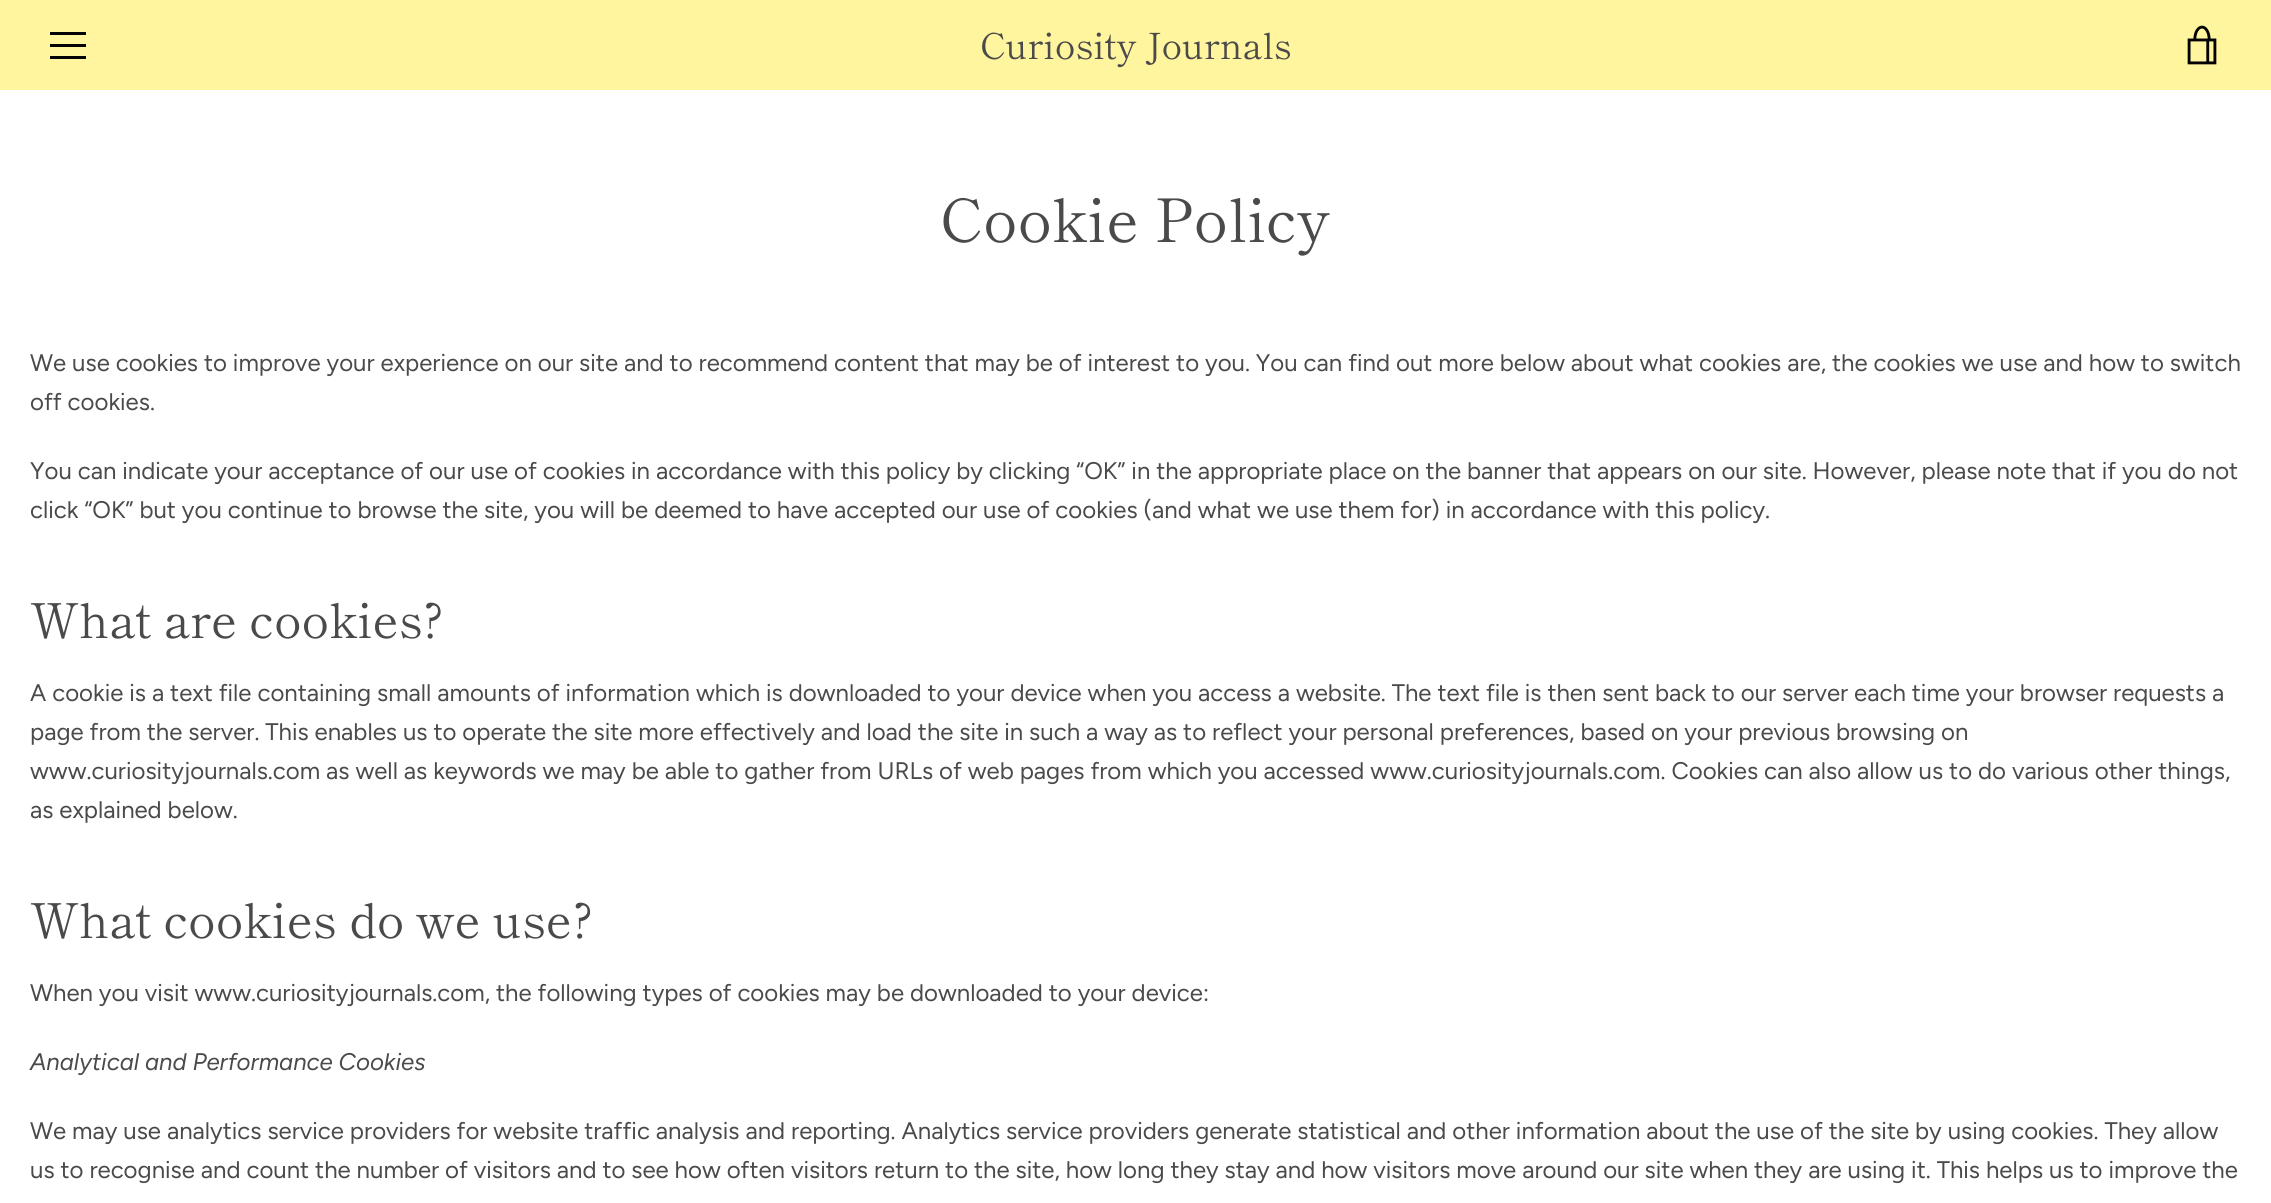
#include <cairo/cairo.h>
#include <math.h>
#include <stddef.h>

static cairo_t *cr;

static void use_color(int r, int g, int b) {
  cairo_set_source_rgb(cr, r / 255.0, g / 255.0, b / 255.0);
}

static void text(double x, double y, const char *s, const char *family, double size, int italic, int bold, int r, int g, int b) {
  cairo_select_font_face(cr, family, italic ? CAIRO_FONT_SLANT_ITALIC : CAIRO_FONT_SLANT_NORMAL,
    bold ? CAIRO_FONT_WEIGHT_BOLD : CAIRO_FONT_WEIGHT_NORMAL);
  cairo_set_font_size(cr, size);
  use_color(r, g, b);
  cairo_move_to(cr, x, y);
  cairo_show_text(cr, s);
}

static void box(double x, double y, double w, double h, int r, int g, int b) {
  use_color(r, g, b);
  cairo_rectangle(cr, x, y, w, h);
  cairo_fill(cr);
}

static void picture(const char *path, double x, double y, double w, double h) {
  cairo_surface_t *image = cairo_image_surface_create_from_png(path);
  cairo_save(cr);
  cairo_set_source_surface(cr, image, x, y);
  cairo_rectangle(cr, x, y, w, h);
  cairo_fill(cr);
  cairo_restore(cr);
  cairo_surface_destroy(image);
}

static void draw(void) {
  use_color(255, 255, 255);
  cairo_paint(cr);
  box(0, 0, 2271, 90, 255, 245, 158);
  box(50, 32, 36, 3, 3, 3, 3);
  box(50, 44, 36, 3, 3, 3, 3);
  box(50, 56, 36, 3, 3, 3, 3);
  picture("img_01.png", 2187, 25, 30, 40);
  text(980, 59, "Curiosity Journals", "Shippori Mincho", 36, 0, 0, 74, 74, 74);
  text(940, 242, "Cookie Policy", "Shippori Mincho", 60, 0, 0, 74, 74, 74);
  text(30, 371, "We use cookies to improve your experience on our site and to recommend content that may be of interest to you. You can find out more below about what cookies are, the cookies we use and how to switch", "Figtree", 24, 0, 0, 74, 74, 74);
  text(30, 410, "off cookies.", "Figtree", 24, 0, 0, 74, 74, 74);
  text(30, 479, "You can indicate your acceptance of our use of cookies in accordance with this policy by clicking “OK” in the appropriate place on the banner that appears on our site. However, please note that if you do not", "Figtree", 24, 0, 0, 74, 74, 74);
  text(30, 518, "click “OK” but you continue to browse the site, you will be deemed to have accepted our use of cookies (and what we use them for) in accordance with this policy.", "Figtree", 24, 0, 0, 74, 74, 74);
  text(30, 638, "What are cookies?", "Shippori Mincho", 48, 0, 0, 74, 74, 74);
  text(30, 701, "A cookie is a text file containing small amounts of information which is downloaded to your device when you access a website. The text file is then sent back to our server each time your browser requests a", "Figtree", 24, 0, 0, 74, 74, 74);
  text(30, 740, "page from the server. This enables us to operate the site more effectively and load the site in such a way as to reflect your personal preferences, based on your previous browsing on", "Figtree", 24, 0, 0, 74, 74, 74);
  text(30, 779, "www.curiosityjournals.com as well as keywords we may be able to gather from URLs of web pages from which you accessed www.curiosityjournals.com. Cookies can also allow us to do various other things,", "Figtree", 24, 0, 0, 74, 74, 74);
  text(30, 818, "as explained below.", "Figtree", 24, 0, 0, 74, 74, 74);
  text(30, 938, "What cookies do we use?", "Shippori Mincho", 48, 0, 0, 74, 74, 74);
  text(30, 1001, "When you visit www.curiosityjournals.com, the following types of cookies may be downloaded to your device:", "Figtree", 24, 0, 0, 74, 74, 74);
  text(30, 1070, "Analytical and Performance Cookies", "Figtree", 24, 1, 0, 74, 74, 74);
  text(30, 1139, "We may use analytics service providers for website traffic analysis and reporting. Analytics service providers generate statistical and other information about the use of the site by using cookies. They allow", "Figtree", 24, 0, 0, 74, 74, 74);
  text(30, 1178, "us to recognise and count the number of visitors and to see how often visitors return to the site, how long they stay and how visitors move around our site when they are using it. This helps us to improve the", "Figtree", 24, 0, 0, 74, 74, 74);
}

int main(void) {
  cairo_surface_t *surface = cairo_image_surface_create(CAIRO_FORMAT_RGB24, 2271, 1203);
  cr = cairo_create(surface);
  cairo_font_options_t *options = cairo_font_options_create();
  cairo_font_options_set_hint_metrics(options, CAIRO_HINT_METRICS_OFF);
  cairo_font_options_set_hint_style(options, CAIRO_HINT_STYLE_NONE);
  cairo_set_font_options(cr, options);
  cairo_set_miter_limit(cr, 4);
  draw();
  cairo_surface_write_to_png(surface, "out.png");
  cairo_font_options_destroy(options);
  cairo_destroy(cr);
  cairo_surface_destroy(surface);
  return 0;
}
